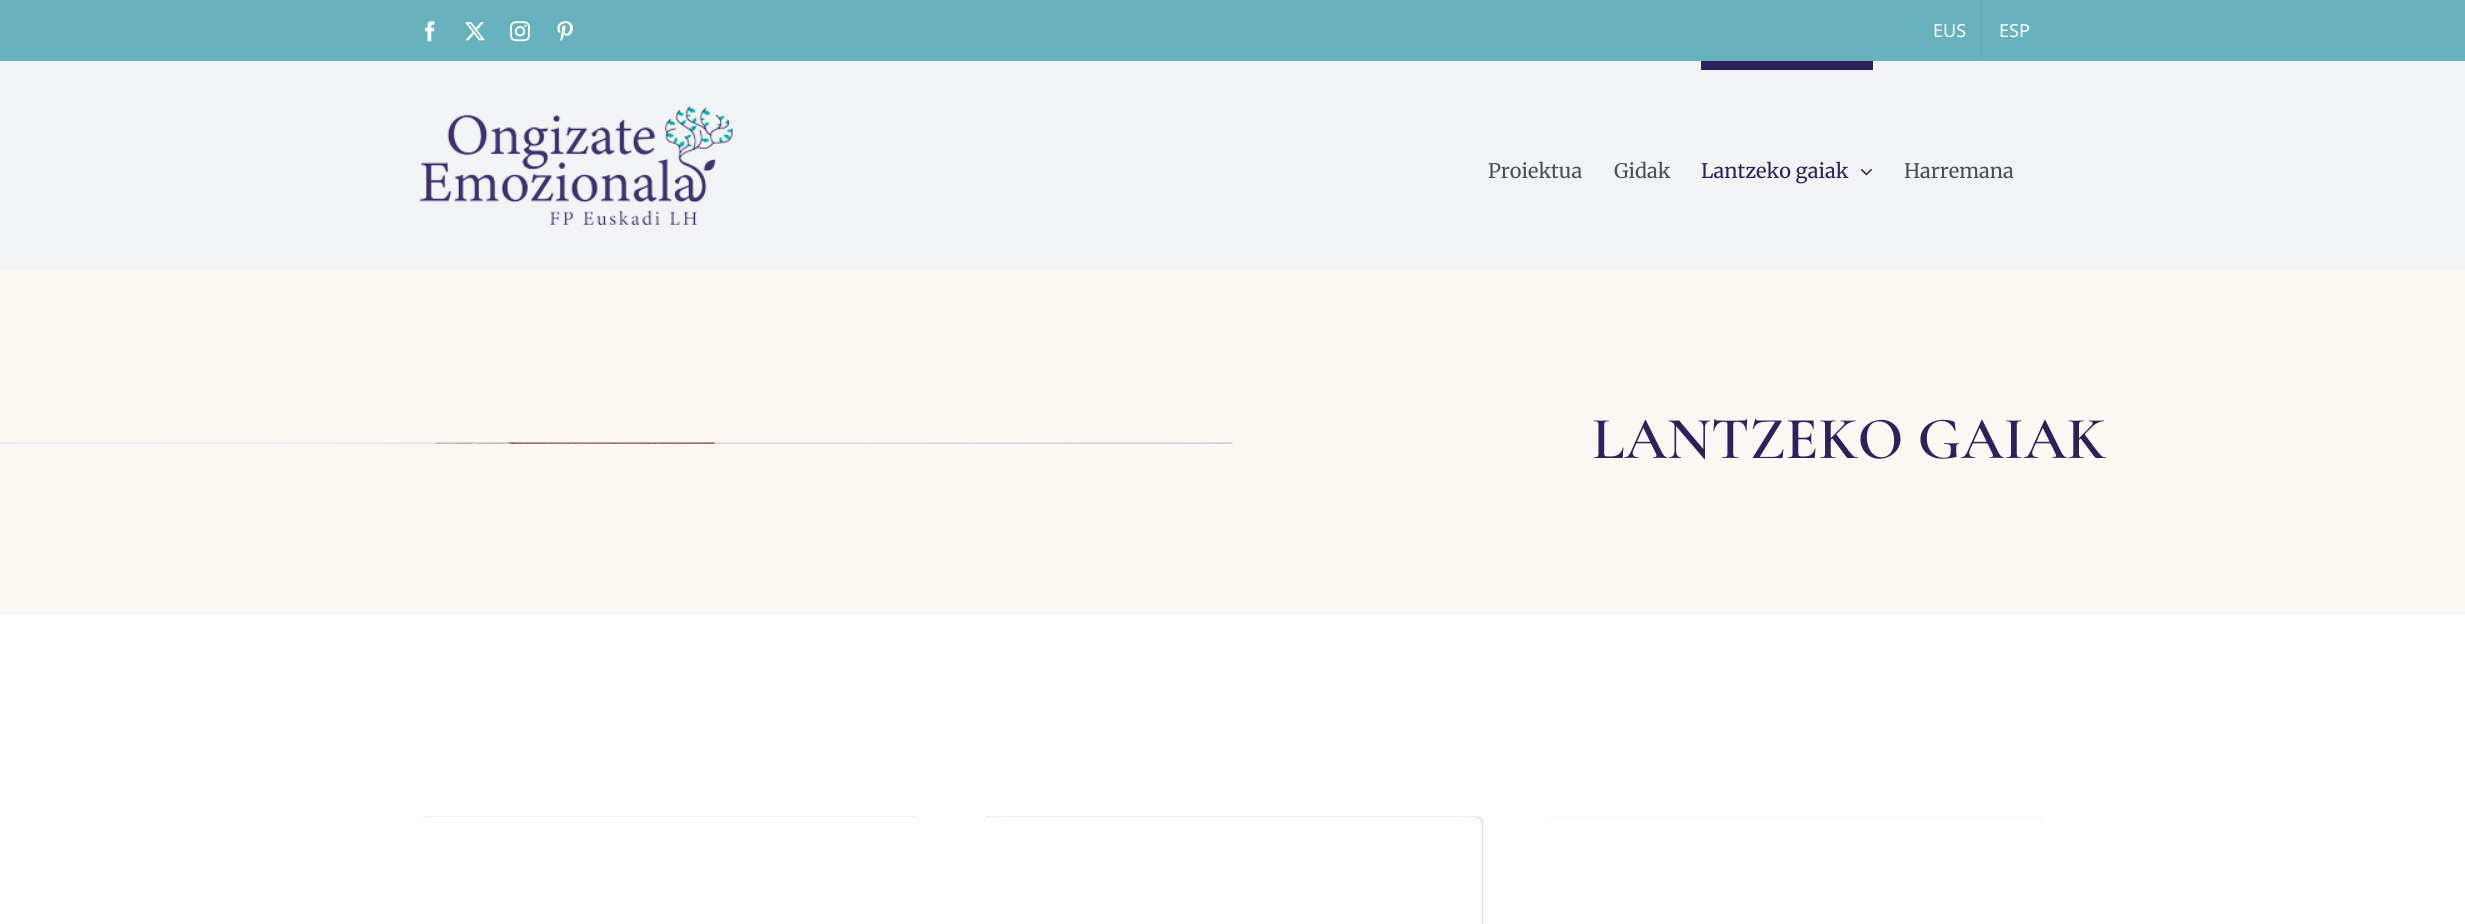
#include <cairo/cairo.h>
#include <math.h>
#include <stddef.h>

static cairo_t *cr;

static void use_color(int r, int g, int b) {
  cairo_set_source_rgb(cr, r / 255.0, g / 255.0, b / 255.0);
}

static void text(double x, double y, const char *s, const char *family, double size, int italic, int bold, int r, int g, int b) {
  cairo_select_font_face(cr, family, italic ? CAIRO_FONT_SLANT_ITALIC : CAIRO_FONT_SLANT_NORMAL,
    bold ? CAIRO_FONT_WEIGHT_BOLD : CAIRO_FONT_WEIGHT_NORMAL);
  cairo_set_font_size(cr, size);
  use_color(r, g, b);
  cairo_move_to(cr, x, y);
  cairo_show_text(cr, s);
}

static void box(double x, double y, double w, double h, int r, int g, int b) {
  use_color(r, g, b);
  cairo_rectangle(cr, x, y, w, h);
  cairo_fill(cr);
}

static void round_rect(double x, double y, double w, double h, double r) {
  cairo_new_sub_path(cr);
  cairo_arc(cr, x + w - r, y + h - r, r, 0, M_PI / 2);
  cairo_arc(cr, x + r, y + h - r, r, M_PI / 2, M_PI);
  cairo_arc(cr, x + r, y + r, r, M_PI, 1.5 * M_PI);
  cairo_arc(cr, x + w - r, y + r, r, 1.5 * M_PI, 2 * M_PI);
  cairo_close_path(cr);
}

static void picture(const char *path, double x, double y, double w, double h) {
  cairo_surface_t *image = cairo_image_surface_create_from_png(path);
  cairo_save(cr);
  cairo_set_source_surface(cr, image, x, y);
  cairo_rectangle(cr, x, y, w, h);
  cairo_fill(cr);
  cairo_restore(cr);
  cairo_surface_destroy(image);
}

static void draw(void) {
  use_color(255, 255, 255);
  cairo_paint(cr);
  box(0, 0, 2465, 61, 103, 178, 188);
  picture("img_01.png", 425, 21, 10, 21);
  picture("img_02.png", 465, 22, 20, 19);
  picture("img_03.png", 510, 21, 20, 21);
  picture("img_04.png", 557, 21, 16, 21);
  box(1981, 0, 1, 60, 97, 167, 177);
  box(0, 61, 2465, 210, 242, 243, 245);
  picture("img_05.png", 420, 106, 313, 119);
  box(1701, 61, 172, 9, 44, 33, 90);
  picture("img_06.png", 1860, 168, 12, 8);
  box(0, 271, 2465, 344, 251, 247, 243);
  picture("img_07.png", 0, 442, 1233, 2);
  use_color(167, 220, 217);
  round_rect(420, 816, 500, 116, 8);
  cairo_fill(cr);
  picture("img_08.png", 420, 816, 500, 108);
  use_color(244, 175, 143);
  round_rect(983, 816, 500, 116, 8);
  cairo_fill(cr);
  picture("img_09.png", 983, 816, 500, 108);
  use_color(194, 229, 246);
  round_rect(1545, 816, 500, 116, 8);
  cairo_fill(cr);
  picture("img_10.png", 1545, 816, 500, 108);
  text(1933, 37, "EUS", "Noto Sans", 18, 0, 0, 255, 255, 255);
  text(1999, 37, "ESP", "Noto Sans", 18, 0, 0, 255, 255, 255);
  text(1488, 178, "Proiektua", "Merriweather Light", 20, 0, 0, 74, 78, 87);
  text(1614, 178, "Gidak", "Merriweather Light", 20, 0, 0, 74, 78, 87);
  text(1701, 178, "Lantzeko gaiak", "Merriweather Light", 20, 0, 0, 44, 33, 90);
  text(1904, 178, "Harremana", "Merriweather Light", 20, 0, 0, 74, 78, 87);
  text(1592, 458, "LANTZEKO GAIAK", "Cormorant Garamond SemiBold", 60, 0, 0, 44, 33, 90);
}

int main(void) {
  cairo_surface_t *surface = cairo_image_surface_create(CAIRO_FORMAT_RGB24, 2465, 924);
  cr = cairo_create(surface);
  cairo_font_options_t *options = cairo_font_options_create();
  cairo_font_options_set_hint_metrics(options, CAIRO_HINT_METRICS_OFF);
  cairo_font_options_set_hint_style(options, CAIRO_HINT_STYLE_NONE);
  cairo_set_font_options(cr, options);
  cairo_set_miter_limit(cr, 4);
  draw();
  cairo_surface_write_to_png(surface, "out.png");
  cairo_font_options_destroy(options);
  cairo_destroy(cr);
  cairo_surface_destroy(surface);
  return 0;
}
